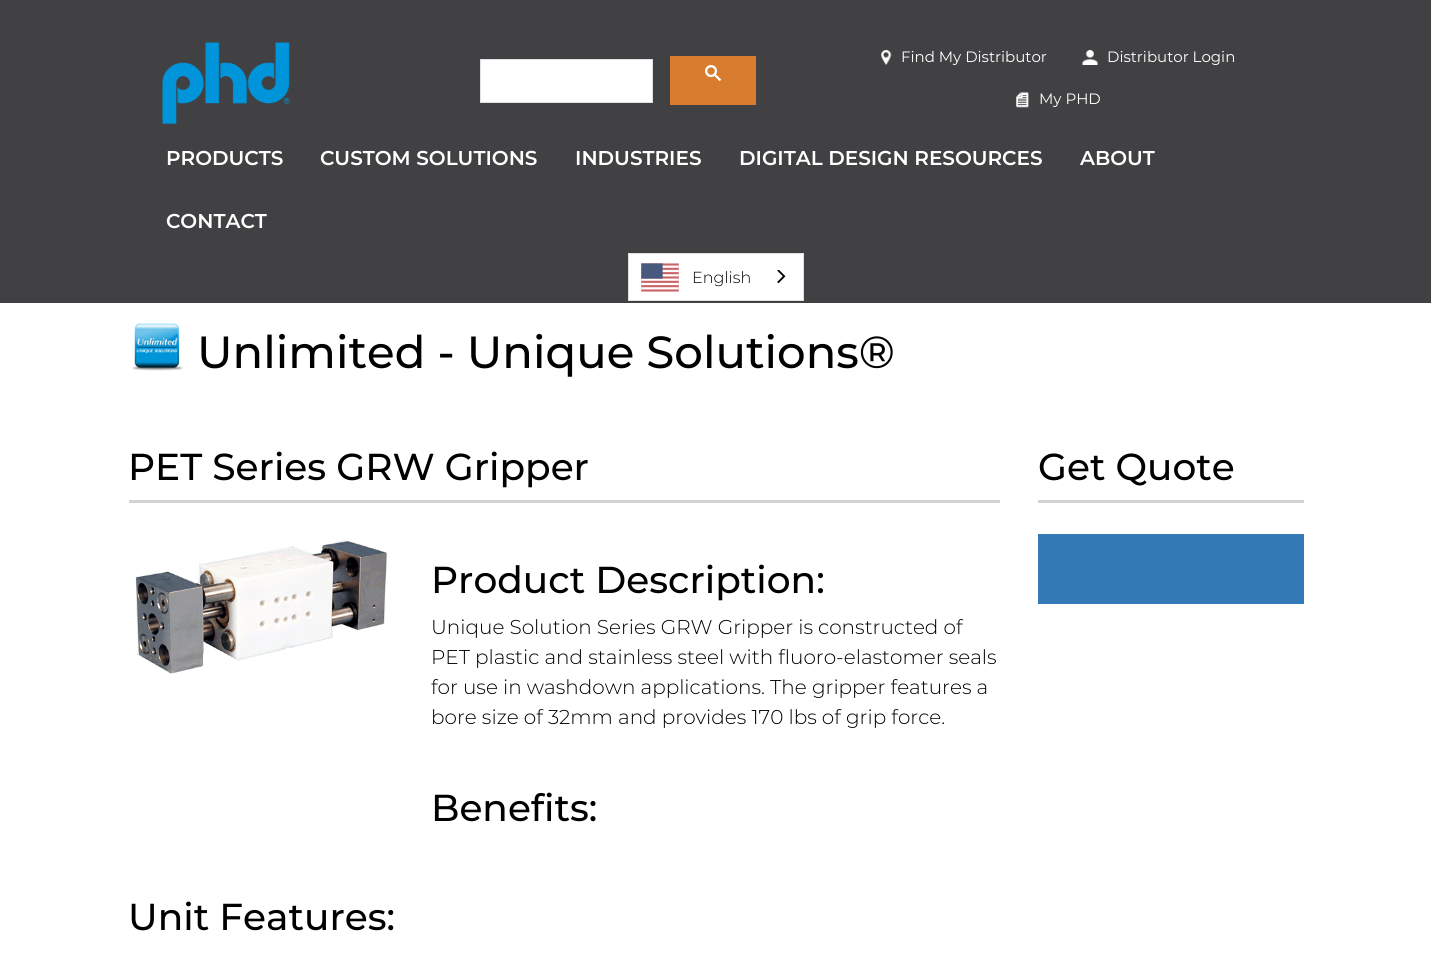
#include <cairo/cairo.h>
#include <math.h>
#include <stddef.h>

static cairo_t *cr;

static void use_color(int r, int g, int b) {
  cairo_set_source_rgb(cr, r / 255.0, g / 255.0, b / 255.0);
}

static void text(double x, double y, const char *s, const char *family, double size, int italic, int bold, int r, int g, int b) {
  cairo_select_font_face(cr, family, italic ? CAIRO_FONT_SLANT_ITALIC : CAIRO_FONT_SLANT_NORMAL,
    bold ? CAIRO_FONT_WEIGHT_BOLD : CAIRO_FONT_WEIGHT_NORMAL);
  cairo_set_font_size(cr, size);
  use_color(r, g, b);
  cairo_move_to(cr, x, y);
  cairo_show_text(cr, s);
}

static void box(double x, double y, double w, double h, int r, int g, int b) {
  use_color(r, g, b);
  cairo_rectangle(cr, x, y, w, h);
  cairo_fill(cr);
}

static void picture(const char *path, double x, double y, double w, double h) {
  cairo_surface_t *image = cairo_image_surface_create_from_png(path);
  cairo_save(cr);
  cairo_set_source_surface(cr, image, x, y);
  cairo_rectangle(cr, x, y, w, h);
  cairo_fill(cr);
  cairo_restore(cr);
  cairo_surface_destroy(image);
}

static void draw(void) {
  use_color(255, 255, 255);
  cairo_paint(cr);
  box(0, 0, 1431, 303, 65, 64, 66);
  picture("img_01.png", 162, 42, 128, 82);
  use_color(255, 255, 255);
  cairo_rectangle(cr, 480.5, 59.5, 172, 43);
  cairo_fill_preserve(cr);
  use_color(223, 225, 229);
  cairo_set_line_width(cr, 1);
  cairo_stroke(cr);
  box(670, 56, 86, 49, 216, 124, 47);
  picture("img_02.png", 705, 65, 16, 16);
  picture("img_03.png", 881, 50, 11, 15);
  picture("img_04.png", 1082, 50, 16, 15);
  picture("img_05.png", 1016, 92, 13, 16);
  use_color(255, 255, 255);
  cairo_rectangle(cr, 628.5, 253.5, 175, 47);
  cairo_fill_preserve(cr);
  use_color(224, 224, 224);
  cairo_stroke(cr);
  picture("img_06.png", 641, 263, 38, 29);
  picture("img_07.png", 777, 270, 9, 14);
  picture("img_08.png", 131, 323, 52, 48);
  box(129, 500, 871, 3, 209, 211, 212);
  picture("img_09.png", 135, 540, 252, 134);
  box(1038, 500, 266, 3, 209, 211, 212);
  box(1038, 534, 266, 70, 51, 122, 183);
  text(901, 62, "Find My Distributor", "Montserrat", 15, 0, 0, 255, 255, 255);
  text(1107, 62, "Distributor Login", "Montserrat", 15, 0, 0, 255, 255, 255);
  text(1039, 104, "My PHD", "Montserrat", 15, 0, 0, 255, 255, 255);
  text(166, 165, "PRODUCTS", "Montserrat SemiBold", 20, 0, 0, 255, 255, 255);
  text(320, 165, "CUSTOM SOLUTIONS", "Montserrat SemiBold", 20, 0, 0, 255, 255, 255);
  text(575, 165, "INDUSTRIES", "Montserrat SemiBold", 20, 0, 0, 255, 255, 255);
  text(739, 165, "DIGITAL DESIGN RESOURCES", "Montserrat SemiBold", 20, 0, 0, 255, 255, 255);
  text(1080, 165, "ABOUT", "Montserrat SemiBold", 20, 0, 0, 255, 255, 255);
  text(166, 228, "CONTACT", "Montserrat SemiBold", 20, 0, 0, 255, 255, 255);
  text(692, 283, "English", "Montserrat Light", 16, 0, 0, 0, 0, 0);
  text(197, 368, "Unlimited - Unique Solutions®", "Montserrat Medium", 45, 0, 0, 0, 0, 0);
  text(128, 480, "PET Series GRW Gripper", "Montserrat Medium", 37.5, 0, 0, 0, 0, 0);
  text(431, 593, "Product Description:", "Montserrat Medium", 37.5, 0, 0, 0, 0, 0);
  text(431, 634, "Unique Solution Series GRW Gripper is constructed of", "Montserrat Light", 20, 0, 0, 0, 0, 0);
  text(431, 664, "PET plastic and stainless steel with fluoro-elastomer seals", "Montserrat Light", 20, 0, 0, 0, 0, 0);
  text(431, 694, "for use in washdown applications. The gripper features a", "Montserrat Light", 20, 0, 0, 0, 0, 0);
  text(431, 724, "bore size of 32mm and provides 170 lbs of grip force.", "Montserrat Light", 20, 0, 0, 0, 0, 0);
  text(431, 821, "Benefits:", "Montserrat Medium", 37.5, 0, 0, 0, 0, 0);
  text(128, 930, "Unit Features:", "Montserrat Medium", 37.5, 0, 0, 0, 0, 0);
  text(1038, 480, "Get Quote", "Montserrat Medium", 37.5, 0, 0, 0, 0, 0);
}

int main(void) {
  cairo_surface_t *surface = cairo_image_surface_create(CAIRO_FORMAT_RGB24, 1431, 964);
  cr = cairo_create(surface);
  cairo_font_options_t *options = cairo_font_options_create();
  cairo_font_options_set_hint_metrics(options, CAIRO_HINT_METRICS_OFF);
  cairo_font_options_set_hint_style(options, CAIRO_HINT_STYLE_NONE);
  cairo_set_font_options(cr, options);
  cairo_set_miter_limit(cr, 4);
  draw();
  cairo_surface_write_to_png(surface, "out.png");
  cairo_font_options_destroy(options);
  cairo_destroy(cr);
  cairo_surface_destroy(surface);
  return 0;
}
